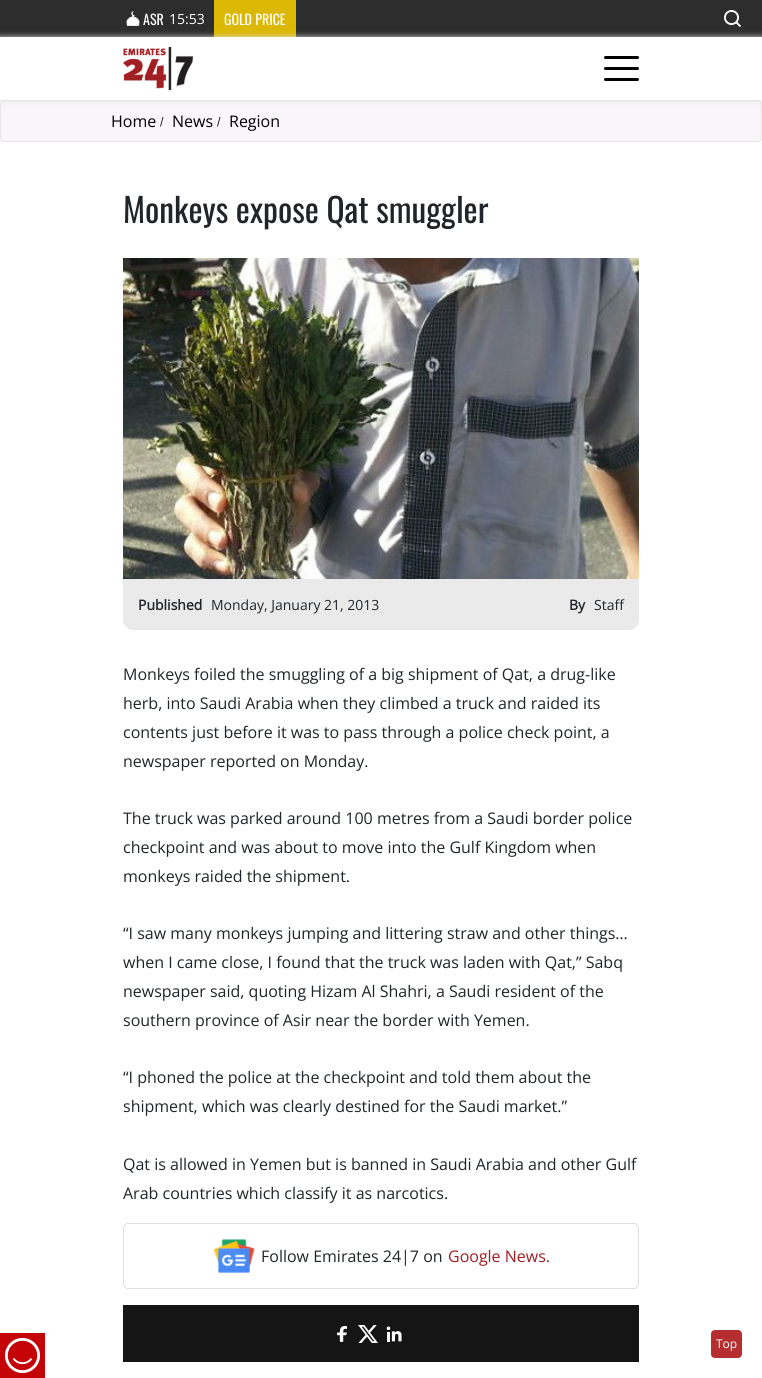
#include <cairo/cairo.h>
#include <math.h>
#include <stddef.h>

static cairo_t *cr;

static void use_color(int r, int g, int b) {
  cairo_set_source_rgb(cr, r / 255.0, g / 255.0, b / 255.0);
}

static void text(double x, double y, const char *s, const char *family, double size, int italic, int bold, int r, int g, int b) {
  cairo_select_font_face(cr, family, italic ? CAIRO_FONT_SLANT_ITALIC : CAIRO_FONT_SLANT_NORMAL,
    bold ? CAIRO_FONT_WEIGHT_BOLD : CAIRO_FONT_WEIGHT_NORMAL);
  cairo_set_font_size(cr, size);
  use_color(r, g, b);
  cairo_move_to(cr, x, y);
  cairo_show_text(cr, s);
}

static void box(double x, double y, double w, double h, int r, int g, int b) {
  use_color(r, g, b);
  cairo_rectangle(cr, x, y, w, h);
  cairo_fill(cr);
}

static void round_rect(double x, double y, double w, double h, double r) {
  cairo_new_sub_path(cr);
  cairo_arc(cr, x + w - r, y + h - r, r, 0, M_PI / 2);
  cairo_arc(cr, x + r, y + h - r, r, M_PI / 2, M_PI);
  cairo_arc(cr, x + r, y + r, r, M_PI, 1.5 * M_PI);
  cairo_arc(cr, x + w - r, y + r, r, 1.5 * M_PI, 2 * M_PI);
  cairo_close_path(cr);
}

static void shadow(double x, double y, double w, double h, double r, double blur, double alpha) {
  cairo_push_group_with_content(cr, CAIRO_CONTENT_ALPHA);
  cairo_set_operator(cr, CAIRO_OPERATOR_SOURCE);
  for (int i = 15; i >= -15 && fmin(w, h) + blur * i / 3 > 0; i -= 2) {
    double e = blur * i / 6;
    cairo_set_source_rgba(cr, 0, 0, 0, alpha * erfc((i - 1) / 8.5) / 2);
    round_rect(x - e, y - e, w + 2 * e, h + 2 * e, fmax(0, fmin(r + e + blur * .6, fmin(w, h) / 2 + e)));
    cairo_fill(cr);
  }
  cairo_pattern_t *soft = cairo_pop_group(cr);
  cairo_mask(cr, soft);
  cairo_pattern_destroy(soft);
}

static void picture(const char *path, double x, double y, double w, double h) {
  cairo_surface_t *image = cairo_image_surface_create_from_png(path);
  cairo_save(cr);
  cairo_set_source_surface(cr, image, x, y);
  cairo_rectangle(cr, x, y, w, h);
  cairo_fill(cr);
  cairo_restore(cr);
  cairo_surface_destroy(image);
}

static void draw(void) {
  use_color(255, 255, 255);
  cairo_paint(cr);
  box(0, 0, 762, 37, 45, 45, 45);
  picture("img_01.png", 126, 11, 14, 15);
  box(214, 0, 82, 37, 219, 184, 3);
  picture("img_02.png", 724, 10, 17, 17);
  use_color(248, 246, 248);
  round_rect(0.5, 100.5, 761, 41, 3.5);
  cairo_fill_preserve(cr);
  use_color(230, 230, 230);
  cairo_set_line_width(cr, 1);
  cairo_stroke(cr);
  cairo_save(cr);
  cairo_set_fill_rule(cr, CAIRO_FILL_RULE_EVEN_ODD);
  cairo_new_path(cr);
  cairo_move_to(cr, 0, 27);
  cairo_line_to(cr, 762, 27);
  cairo_line_to(cr, 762, 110);
  cairo_line_to(cr, 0, 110);
  cairo_close_path(cr);
  cairo_move_to(cr, 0, 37);
  cairo_line_to(cr, 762, 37);
  cairo_line_to(cr, 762, 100);
  cairo_line_to(cr, 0, 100);
  cairo_close_path(cr);
  cairo_clip(cr);
  use_color(221, 221, 221);
  shadow(0, 37, 762, 63, 0, 3, 1);
  cairo_restore(cr);
  picture("img_03.png", 123, 47, 70, 43);
  use_color(0, 0, 0);
  round_rect(604, 56, 35, 3, 1.5);
  cairo_fill(cr);
  round_rect(604, 67, 35, 3, 1.5);
  cairo_fill(cr);
  round_rect(604, 78, 35, 3, 1.5);
  cairo_fill(cr);
  picture("img_04.png", 123, 258, 516, 321);
  use_color(234, 234, 234);
  cairo_new_path(cr);
  cairo_move_to(cr, 123, 579);
  cairo_line_to(cr, 639, 579);
  cairo_line_to(cr, 639, 620);
  cairo_curve_to(cr, 639, 625.5, 634.5, 630, 629, 630);
  cairo_line_to(cr, 133, 630);
  cairo_curve_to(cr, 127.5, 630, 123, 625.5, 123, 620);
  cairo_close_path(cr);
  cairo_fill(cr);
  round_rect(123.5, 1223.5, 515, 65, 4.5);
  use_color(221, 221, 221);
  cairo_stroke(cr);
  picture("img_05.png", 213, 1239, 42, 34);
  box(123, 1305, 516, 57, 21, 21, 21);
  picture("img_06.png", 337, 1326, 10, 16);
  picture("img_07.png", 358, 1325, 20, 18);
  picture("img_08.png", 386, 1326, 16, 16);
  box(0, 1333, 45, 45, 197, 4, 8);
  picture("img_09.png", 5, 1338, 35, 35);
  use_color(182, 46, 48);
  round_rect(711, 1330, 31, 28, 4);
  cairo_fill(cr);
  text(143, 25, "ASR", "Oswald", 14, 0, 0, 255, 255, 255);
  text(169, 24, "15:53", "Open Sans", 14, 0, 0, 255, 255, 255);
  text(224, 25, "GOLD PRICE", "Oswald", 14, 0, 0, 255, 255, 255);
  text(111, 127, "Home", "Open Sans", 16, 0, 0, 0, 0, 0);
  text(172, 127, "News", "Open Sans", 16, 0, 0, 0, 0, 0);
  use_color(33, 37, 41);
  cairo_new_path(cr);
  cairo_move_to(cr, 162.5, 117);
  cairo_line_to(cr, 163.5, 117);
  cairo_line_to(cr, 161, 126.5);
  cairo_line_to(cr, 160, 126.5);
  cairo_close_path(cr);
  cairo_move_to(cr, 219.5, 117);
  cairo_line_to(cr, 220.5, 117);
  cairo_line_to(cr, 218, 126.5);
  cairo_line_to(cr, 217, 126.5);
  cairo_close_path(cr);
  cairo_fill(cr);
  text(229, 127, "Region", "Open Sans", 16, 0, 0, 0, 0, 0);
  text(123, 223, "Monkeys expose Qat smuggler", "Oswald", 33.5, 0, 0, 33, 37, 41);
  text(138, 610, "Published", "Open Sans", 14, 0, 1, 33, 37, 41);
  text(211, 610, "Monday, January 21, 2013", "Open Sans", 14, 0, 0, 33, 37, 41);
  text(569, 610, "By", "Open Sans", 14, 0, 1, 33, 37, 41);
  text(594, 610, "Staff", "Open Sans", 14, 0, 0, 33, 37, 41);
  text(123, 680, "Monkeys foiled the smuggling of a big shipment of Qat, a drug-like", "Open Sans", 16, 0, 0, 33, 37, 41);
  text(123, 709, "herb, into Saudi Arabia when they climbed a truck and raided its", "Open Sans", 16, 0, 0, 33, 37, 41);
  text(123, 738, "contents just before it was to pass through a police check point, a", "Open Sans", 16, 0, 0, 33, 37, 41);
  text(123, 767, "newspaper reported on Monday.", "Open Sans", 16, 0, 0, 33, 37, 41);
  text(123, 824, "The truck was parked around 100 metres from a Saudi border police", "Open Sans", 16, 0, 0, 33, 37, 41);
  text(123, 853, "checkpoint and was about to move into the Gulf Kingdom when", "Open Sans", 16, 0, 0, 33, 37, 41);
  text(123, 882, "monkeys raided the shipment.", "Open Sans", 16, 0, 0, 33, 37, 41);
  text(123, 939, "“I saw many monkeys jumping and littering straw and other things…", "Open Sans", 16, 0, 0, 33, 37, 41);
  text(123, 968, "when I came close, I found that the truck was laden with Qat,” Sabq", "Open Sans", 16, 0, 0, 33, 37, 41);
  text(123, 997, "newspaper said, quoting Hizam Al Shahri, a Saudi resident of the", "Open Sans", 16, 0, 0, 33, 37, 41);
  text(123, 1026, "southern province of Asir near the border with Yemen.", "Open Sans", 16, 0, 0, 33, 37, 41);
  text(123, 1083, "“I phoned the police at the checkpoint and told them about the", "Open Sans", 16, 0, 0, 33, 37, 41);
  text(123, 1112, "shipment, which was clearly destined for the Saudi market.”", "Open Sans", 16, 0, 0, 33, 37, 41);
  text(123, 1170, "Qat is allowed in Yemen but is banned in Saudi Arabia and other Gulf", "Open Sans", 16, 0, 0, 33, 37, 41);
  text(123, 1199, "Arab countries which classify it as narcotics.", "Open Sans", 16, 0, 0, 33, 37, 41);
  text(261, 1262, "Follow Emirates 24|7 on", "Open Sans", 16, 0, 0, 33, 37, 41);
  text(448, 1262, "Google News.", "Open Sans", 16, 0, 0, 162, 29, 33);
  text(716, 1348, "Top", "Open Sans", 12, 0, 0, 255, 255, 255);
}

int main(void) {
  cairo_surface_t *surface = cairo_image_surface_create(CAIRO_FORMAT_RGB24, 762, 1378);
  cr = cairo_create(surface);
  cairo_font_options_t *options = cairo_font_options_create();
  cairo_font_options_set_hint_metrics(options, CAIRO_HINT_METRICS_OFF);
  cairo_font_options_set_hint_style(options, CAIRO_HINT_STYLE_NONE);
  cairo_set_font_options(cr, options);
  cairo_set_miter_limit(cr, 4);
  draw();
  cairo_surface_write_to_png(surface, "out.png");
  cairo_font_options_destroy(options);
  cairo_destroy(cr);
  cairo_surface_destroy(surface);
  return 0;
}
